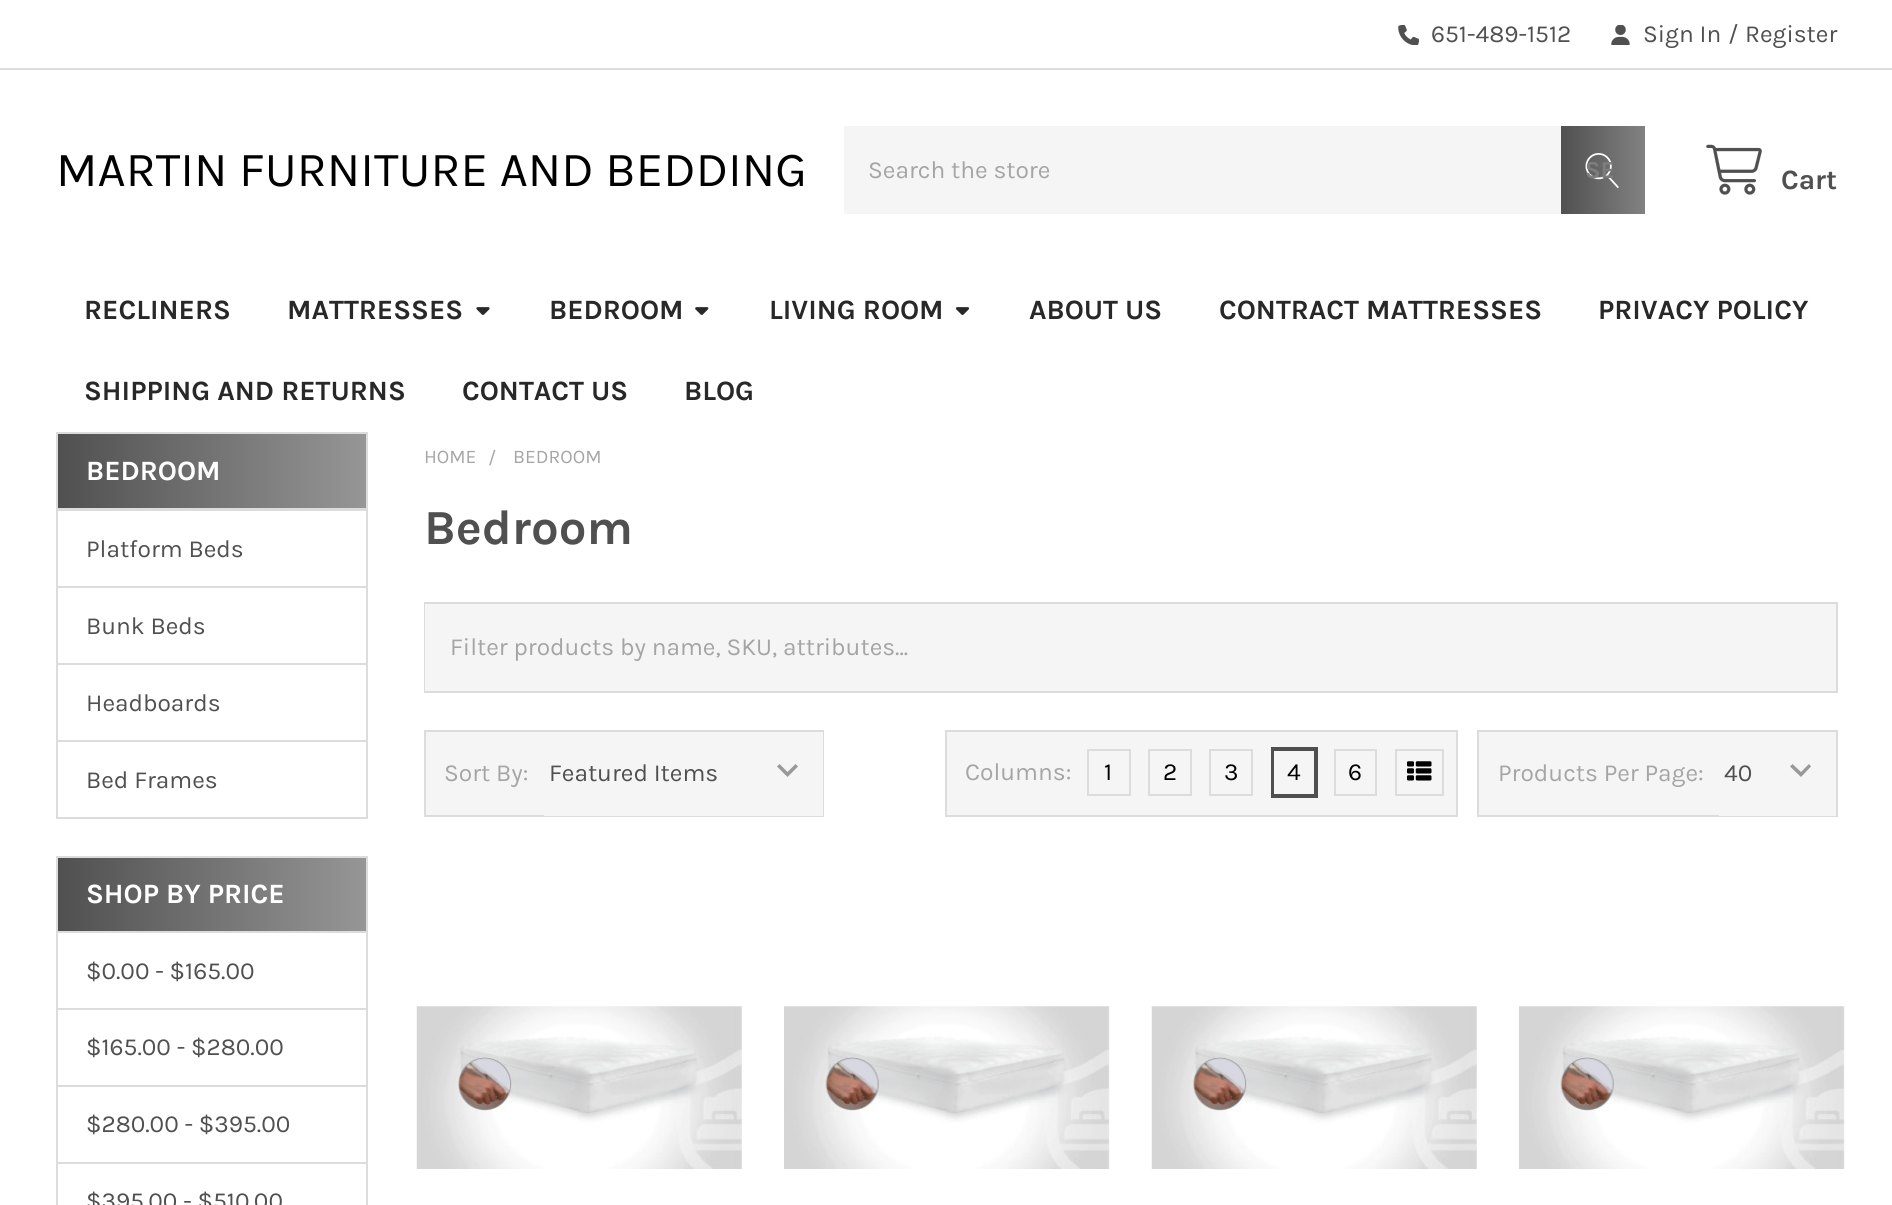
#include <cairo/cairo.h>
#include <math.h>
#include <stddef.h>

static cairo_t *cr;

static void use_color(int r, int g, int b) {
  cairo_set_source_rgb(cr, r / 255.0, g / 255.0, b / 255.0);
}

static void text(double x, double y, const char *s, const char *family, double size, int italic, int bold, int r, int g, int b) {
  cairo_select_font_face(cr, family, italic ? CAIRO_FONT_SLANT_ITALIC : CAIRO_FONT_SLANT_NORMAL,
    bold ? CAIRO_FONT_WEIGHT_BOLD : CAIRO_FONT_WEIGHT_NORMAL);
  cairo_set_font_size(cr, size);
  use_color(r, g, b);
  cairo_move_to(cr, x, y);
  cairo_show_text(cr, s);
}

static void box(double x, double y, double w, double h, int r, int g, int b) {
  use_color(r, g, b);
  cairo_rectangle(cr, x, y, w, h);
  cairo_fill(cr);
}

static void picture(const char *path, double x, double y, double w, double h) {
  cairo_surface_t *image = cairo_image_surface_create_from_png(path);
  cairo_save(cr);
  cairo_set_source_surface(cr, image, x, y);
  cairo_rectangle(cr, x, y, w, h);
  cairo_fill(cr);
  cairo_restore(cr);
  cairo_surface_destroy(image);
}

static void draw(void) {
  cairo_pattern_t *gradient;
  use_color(255, 255, 255);
  cairo_paint(cr);
  box(0, 68, 1892, 2, 220, 220, 220);
  picture("img_01.png", 1398, 25, 21, 20);
  picture("img_02.png", 1611, 25, 19, 20);
  gradient = cairo_pattern_create_linear(1561, 170, 1645, 170);
  cairo_pattern_add_color_stop_rgba(gradient, 0, 0.314, 0.314, 0.314, 1);
  cairo_pattern_add_color_stop_rgba(gradient, 1, 0.51, 0.51, 0.51, 1);
  cairo_set_source(cr, gradient);
  cairo_pattern_destroy(gradient);
  cairo_rectangle(cr, 1561, 126, 84, 88);
  cairo_fill(cr);
  picture("img_03.png", 1585, 153, 34, 35);
  box(844, 126, 717, 88, 245, 245, 245);
  picture("img_04.png", 1706, 144, 56, 51);
  picture("img_05.png", 476, 307, 14, 8);
  picture("img_06.png", 695, 307, 14, 8);
  picture("img_07.png", 955, 307, 15, 8);
  cairo_rectangle(cr, 57, 433, 310, 385);
  use_color(220, 220, 220);
  cairo_stroke(cr);
  gradient = cairo_pattern_create_linear(58, 471, 366, 471);
  cairo_pattern_add_color_stop_rgba(gradient, 0, 0.314, 0.314, 0.314, 1);
  cairo_pattern_add_color_stop_rgba(gradient, 1, 0.588, 0.588, 0.588, 1);
  cairo_set_source(cr, gradient);
  cairo_pattern_destroy(gradient);
  cairo_rectangle(cr, 58, 434, 308, 74);
  cairo_fill(cr);
  box(58, 508, 308, 3, 220, 220, 220);
  box(58, 586, 308, 2, 220, 220, 220);
  box(58, 663, 308, 2, 220, 220, 220);
  box(58, 740, 308, 2, 220, 220, 220);
  cairo_rectangle(cr, 57, 857, 310, 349);
  cairo_stroke(cr);
  gradient = cairo_pattern_create_linear(58, 894, 366, 894);
  cairo_pattern_add_color_stop_rgba(gradient, 0, 0.314, 0.314, 0.314, 1);
  cairo_pattern_add_color_stop_rgba(gradient, 1, 0.588, 0.588, 0.588, 1);
  cairo_set_source(cr, gradient);
  cairo_pattern_destroy(gradient);
  cairo_rectangle(cr, 58, 858, 308, 73);
  cairo_fill(cr);
  box(58, 931, 308, 2, 220, 220, 220);
  box(58, 1008, 308, 2, 220, 220, 220);
  box(58, 1085, 308, 2, 220, 220, 220);
  box(58, 1162, 308, 2, 220, 220, 220);
  cairo_rectangle(cr, 425, 603, 1412, 89);
  cairo_stroke(cr);
  box(425, 604, 1411, 87, 245, 245, 245);
  box(426, 732, 118, 83, 245, 245, 245);
  cairo_rectangle(cr, 425, 731, 398, 85);
  use_color(220, 220, 220);
  cairo_stroke(cr);
  box(544, 732, 279, 84, 245, 245, 245);
  use_color(153, 153, 153);
  cairo_new_path(cr);
  cairo_move_to(cr, 795.5, 764);
  cairo_line_to(cr, 787.5, 772);
  cairo_line_to(cr, 779.5, 764);
  cairo_line_to(cr, 777, 766.5);
  cairo_line_to(cr, 787.5, 777);
  cairo_line_to(cr, 798, 766.5);
  cairo_close_path(cr);
  cairo_fill(cr);
  use_color(245, 245, 245);
  cairo_rectangle(cr, 946, 731, 511, 85);
  cairo_fill_preserve(cr);
  use_color(220, 220, 220);
  cairo_stroke(cr);
  cairo_rectangle(cr, 1088, 750, 42, 45);
  cairo_stroke(cr);
  cairo_rectangle(cr, 1149, 750, 42, 45);
  cairo_stroke(cr);
  cairo_rectangle(cr, 1210, 750, 42, 45);
  cairo_stroke(cr);
  cairo_rectangle(cr, 1272, 748, 45, 49);
  use_color(79, 79, 79);
  cairo_stroke(cr);
  cairo_rectangle(cr, 1273, 750, 42, 45);
  cairo_stroke(cr);
  cairo_rectangle(cr, 1335, 750, 41, 45);
  use_color(220, 220, 220);
  cairo_stroke(cr);
  cairo_rectangle(cr, 1396, 750, 47, 45);
  cairo_stroke(cr);
  picture("img_08.png", 1407, 761, 25, 20);
  box(1479, 732, 240, 83, 245, 245, 245);
  cairo_rectangle(cr, 1478, 731, 359, 85);
  use_color(220, 220, 220);
  cairo_stroke(cr);
  box(1719, 732, 117, 84, 245, 245, 245);
  use_color(153, 153, 153);
  cairo_new_path(cr);
  cairo_move_to(cr, 1809, 764);
  cairo_line_to(cr, 1801, 772);
  cairo_line_to(cr, 1792.5, 764);
  cairo_line_to(cr, 1790, 766.5);
  cairo_line_to(cr, 1801, 777);
  cairo_line_to(cr, 1811, 766.5);
  cairo_close_path(cr);
  cairo_fill(cr);
  picture("img_09.png", 416, 1006, 326, 163);
  picture("img_10.png", 784, 1006, 326, 163);
  picture("img_09.png", 1151, 1006, 326, 163);
  picture("img_10.png", 1519, 1006, 326, 163);
  text(1431, 42, "651-489-1512", "Karla", 24.5, 0, 0, 80, 80, 80);
  text(1643, 42, "Sign In", "Karla", 24.5, 0, 0, 80, 80, 80);
  text(1728, 42, "/", "Karla", 24.5, 0, 0, 80, 80, 80);
  text(1745, 42, "Register", "Karla", 24.5, 0, 0, 80, 80, 80);
  text(56, 186, "MARTIN FURNITURE AND BEDDING", "Karla", 49, 0, 0, 0, 0, 0);
  text(868, 178, "Search the store", "Karla", 24.5, 0, 0, 165, 165, 165);
  text(1585, 178, "SE", "Karla", 24.5, 0, 1, 125, 125, 125);
  text(1781, 189, "Cart", "Karla", 28, 0, 1, 80, 80, 80);
  text(1029, 319, "ABOUT US", "Karla", 28, 0, 1, 40, 40, 40);
  text(1219, 319, "CONTRACT MATTRESSES", "Karla", 28, 0, 1, 40, 40, 40);
  text(1598, 319, "PRIVACY POLICY", "Karla", 28, 0, 1, 40, 40, 40);
  text(84, 400, "SHIPPING AND RETURNS", "Karla", 28, 0, 1, 40, 40, 40);
  text(462, 400, "CONTACT US", "Karla", 28, 0, 1, 40, 40, 40);
  text(684, 400, "BLOG", "Karla", 28, 0, 1, 40, 40, 40);
  text(84, 319, "RECLINERS", "Karla", 28, 0, 1, 40, 40, 40);
  text(287, 319, "MATTRESSES", "Karla", 28, 0, 1, 40, 40, 40);
  text(549, 319, "BEDROOM", "Karla", 28, 0, 1, 40, 40, 40);
  text(769, 319, "LIVING ROOM", "Karla", 28, 0, 1, 40, 40, 40);
  text(86, 480, "BEDROOM", "Karla", 28, 0, 1, 255, 255, 255);
  text(86, 557, "Platform Beds", "Karla", 24.5, 0, 0, 80, 80, 80);
  text(86, 634, "Bunk Beds", "Karla", 24.5, 0, 0, 80, 80, 80);
  text(86, 711, "Headboards", "Karla", 24.5, 0, 0, 80, 80, 80);
  text(86, 788, "Bed Frames", "Karla", 24.5, 0, 0, 80, 80, 80);
  text(86, 903, "SHOP BY PRICE", "Karla", 28, 0, 1, 255, 255, 255);
  text(86, 979, "$0.00 - $165.00", "Karla", 24.5, 0, 0, 80, 80, 80);
  text(86, 1055, "$165.00 - $280.00", "Karla", 24.5, 0, 0, 80, 80, 80);
  text(86, 1132, "$280.00 - $395.00", "Karla", 24.5, 0, 0, 80, 80, 80);
  text(86, 1209, "$395.00 - $510.00", "Karla", 24.5, 0, 0, 80, 80, 80);
  text(424, 463, "HOME", "Karla", 19.25, 0, 0, 165, 165, 165);
  text(488, 464, "/", "Karla", 19.25, 0, 0, 165, 165, 165);
  text(513, 463, "BEDROOM", "Karla", 19.25, 0, 0, 165, 165, 165);
  text(424, 544, "Bedroom", "Karla", 49, 0, 1, 80, 80, 80);
  text(450, 655, "Filter products by name, SKU, attributes...", "Karla", 24.5, 0, 0, 165, 165, 165);
  text(444, 781, "Sort By:", "Karla", 24.5, 0, 0, 165, 165, 165);
  text(549, 781, "Featured Items", "Karla", 24.5, 0, 0, 80, 80, 80);
  text(965, 780, "Columns:", "Karla", 24.5, 0, 0, 165, 165, 165);
  text(1104, 780, "1", "Karla", 24.5, 0, 0, 0, 0, 0);
  text(1163, 780, "2", "Karla", 24.5, 0, 0, 0, 0, 0);
  text(1224, 780, "3", "Karla", 24.5, 0, 0, 0, 0, 0);
  text(1287, 780, "4", "Karla", 24.5, 0, 0, 0, 0, 0);
  text(1348, 780, "6", "Karla", 24.5, 0, 0, 0, 0, 0);
  text(1498, 781, "Products Per Page:", "Karla", 24.5, 0, 0, 165, 165, 165);
  text(1724, 781, "40", "Karla", 24.5, 0, 0, 80, 80, 80);
}

int main(void) {
  cairo_surface_t *surface = cairo_image_surface_create(CAIRO_FORMAT_RGB24, 1892, 1205);
  cr = cairo_create(surface);
  cairo_font_options_t *options = cairo_font_options_create();
  cairo_font_options_set_hint_metrics(options, CAIRO_HINT_METRICS_OFF);
  cairo_font_options_set_hint_style(options, CAIRO_HINT_STYLE_NONE);
  cairo_set_font_options(cr, options);
  cairo_set_miter_limit(cr, 4);
  draw();
  cairo_surface_write_to_png(surface, "out.png");
  cairo_font_options_destroy(options);
  cairo_destroy(cr);
  cairo_surface_destroy(surface);
  return 0;
}
